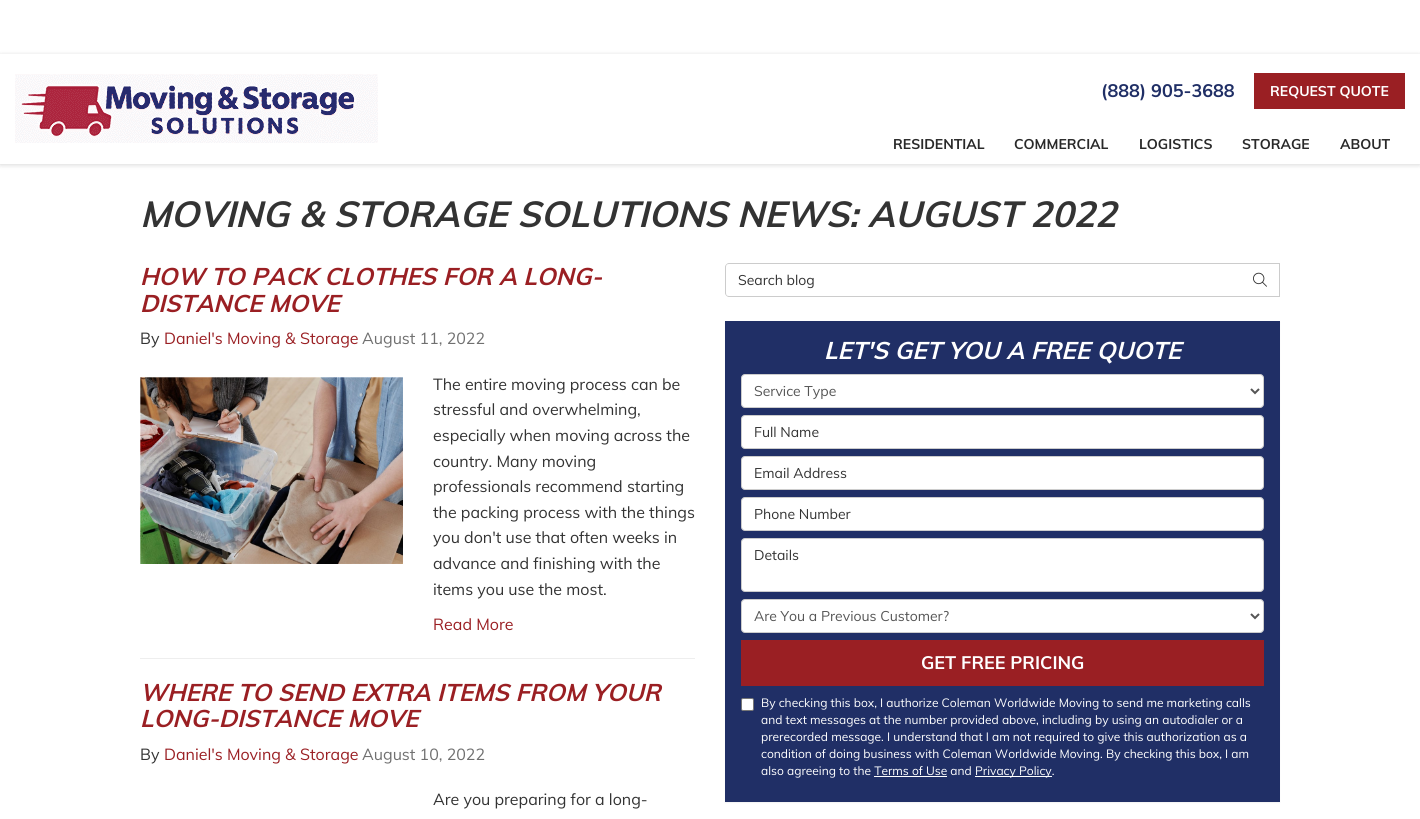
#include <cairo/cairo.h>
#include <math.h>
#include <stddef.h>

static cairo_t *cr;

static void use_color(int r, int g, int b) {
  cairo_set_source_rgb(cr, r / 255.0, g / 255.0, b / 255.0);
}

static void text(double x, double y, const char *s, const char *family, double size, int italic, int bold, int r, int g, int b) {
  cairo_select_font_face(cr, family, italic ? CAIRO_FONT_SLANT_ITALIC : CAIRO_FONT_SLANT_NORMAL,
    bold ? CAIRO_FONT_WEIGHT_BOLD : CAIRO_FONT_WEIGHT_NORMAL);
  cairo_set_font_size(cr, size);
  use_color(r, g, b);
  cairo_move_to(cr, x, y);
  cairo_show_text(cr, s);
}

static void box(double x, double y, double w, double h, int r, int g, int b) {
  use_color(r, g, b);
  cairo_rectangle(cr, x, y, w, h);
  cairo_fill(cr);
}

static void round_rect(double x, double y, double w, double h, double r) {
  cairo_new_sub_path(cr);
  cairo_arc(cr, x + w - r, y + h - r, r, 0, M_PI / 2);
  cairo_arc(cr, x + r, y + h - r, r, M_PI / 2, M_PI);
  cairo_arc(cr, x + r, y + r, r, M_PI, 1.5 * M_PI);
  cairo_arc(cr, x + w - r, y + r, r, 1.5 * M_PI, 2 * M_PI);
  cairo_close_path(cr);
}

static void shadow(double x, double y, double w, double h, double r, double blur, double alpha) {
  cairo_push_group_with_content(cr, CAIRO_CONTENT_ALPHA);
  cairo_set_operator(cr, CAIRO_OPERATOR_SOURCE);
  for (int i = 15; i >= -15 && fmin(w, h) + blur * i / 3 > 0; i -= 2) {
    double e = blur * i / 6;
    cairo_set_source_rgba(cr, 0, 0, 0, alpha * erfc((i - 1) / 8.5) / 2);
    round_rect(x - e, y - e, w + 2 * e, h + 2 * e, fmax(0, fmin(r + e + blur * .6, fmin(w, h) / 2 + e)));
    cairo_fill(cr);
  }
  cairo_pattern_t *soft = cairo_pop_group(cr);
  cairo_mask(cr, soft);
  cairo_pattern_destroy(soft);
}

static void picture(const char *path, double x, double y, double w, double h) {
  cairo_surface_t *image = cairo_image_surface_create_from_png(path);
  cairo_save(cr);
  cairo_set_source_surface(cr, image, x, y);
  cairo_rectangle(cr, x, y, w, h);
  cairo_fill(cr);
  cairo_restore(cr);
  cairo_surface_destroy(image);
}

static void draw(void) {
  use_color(255, 255, 255);
  cairo_paint(cr);
  cairo_save(cr);
  cairo_set_fill_rule(cr, CAIRO_FILL_RULE_EVEN_ODD);
  cairo_new_path(cr);
  cairo_move_to(cr, 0, 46);
  cairo_line_to(cr, 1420, 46);
  cairo_line_to(cr, 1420, 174);
  cairo_line_to(cr, 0, 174);
  cairo_close_path(cr);
  cairo_move_to(cr, 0, 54);
  cairo_line_to(cr, 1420, 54);
  cairo_line_to(cr, 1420, 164);
  cairo_line_to(cr, 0, 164);
  cairo_close_path(cr);
  cairo_clip(cr);
  use_color(0, 0, 0);
  shadow(0, 55, 1420, 110, 0, 2.5, 0.15);
  cairo_restore(cr);
  picture("img_01.png", 15, 74, 363, 69);
  box(1254, 73, 151, 36, 154, 31, 35);
  picture("img_02.png", 140, 377, 263, 187);
  box(140, 658, 555, 1, 238, 238, 238);
  box(1241, 263, 39, 1, 204, 204, 204);
  box(1279, 263, 1, 34, 204, 204, 204);
  box(1241, 296, 39, 1, 204, 204, 204);
  use_color(255, 255, 255);
  cairo_new_path(cr);
  cairo_move_to(cr, 729, 263);
  cairo_line_to(cr, 1242, 263);
  cairo_line_to(cr, 1242, 297);
  cairo_line_to(cr, 729, 297);
  cairo_curve_to(cr, 727, 297, 725, 295, 725, 293);
  cairo_line_to(cr, 725, 267);
  cairo_curve_to(cr, 725, 265, 727, 263, 729, 263);
  cairo_close_path(cr);
  cairo_fill(cr);
  use_color(204, 204, 204);
  cairo_set_fill_rule(cr, CAIRO_FILL_RULE_EVEN_ODD);
  cairo_new_path(cr);
  cairo_move_to(cr, 729, 263);
  cairo_line_to(cr, 1242, 263);
  cairo_line_to(cr, 1242, 297);
  cairo_line_to(cr, 729, 297);
  cairo_curve_to(cr, 727, 297, 725, 295, 725, 293);
  cairo_line_to(cr, 725, 267);
  cairo_curve_to(cr, 725, 265, 727, 263, 729, 263);
  cairo_close_path(cr);
  cairo_move_to(cr, 729, 264);
  cairo_line_to(cr, 1242, 264);
  cairo_line_to(cr, 1242, 296);
  cairo_line_to(cr, 729, 296);
  cairo_curve_to(cr, 727, 296, 726, 295, 726, 293);
  cairo_line_to(cr, 726, 267);
  cairo_curve_to(cr, 726, 265, 727, 264, 729, 264);
  cairo_close_path(cr);
  cairo_fill(cr);
  picture("img_03.png", 1253, 272, 14, 15);
  use_color(0, 0, 0);
  shadow(725, 322, 555, 481, 0, 0.5, 0.05);
  box(725, 321, 555, 481, 32, 47, 102);
  use_color(255, 255, 255);
  round_rect(741.5, 374.5, 522, 33, 3.5);
  cairo_fill_preserve(cr);
  use_color(204, 204, 204);
  cairo_set_line_width(cr, 1);
  cairo_stroke(cr);
  cairo_new_path(cr);
  cairo_move_to(cr, 1251, 389);
  cairo_line_to(cr, 1255, 393);
  cairo_line_to(cr, 1259, 389);
  use_color(85, 85, 85);
  cairo_set_line_width(cr, 2);
  cairo_stroke(cr);
  use_color(255, 255, 255);
  round_rect(741.5, 415.5, 522, 33, 3.5);
  cairo_fill_preserve(cr);
  use_color(204, 204, 204);
  cairo_set_line_width(cr, 1);
  cairo_stroke(cr);
  use_color(255, 255, 255);
  round_rect(741.5, 456.5, 522, 33, 3.5);
  cairo_fill_preserve(cr);
  use_color(204, 204, 204);
  cairo_stroke(cr);
  use_color(255, 255, 255);
  round_rect(741.5, 497.5, 522, 33, 3.5);
  cairo_fill_preserve(cr);
  use_color(204, 204, 204);
  cairo_stroke(cr);
  use_color(255, 255, 255);
  round_rect(741.5, 538.5, 522, 53, 3.5);
  cairo_fill_preserve(cr);
  use_color(204, 204, 204);
  cairo_stroke(cr);
  use_color(255, 255, 255);
  round_rect(741.5, 599.5, 522, 33, 3.5);
  cairo_fill_preserve(cr);
  use_color(204, 204, 204);
  cairo_stroke(cr);
  cairo_new_path(cr);
  cairo_move_to(cr, 1251, 614);
  cairo_line_to(cr, 1255, 618);
  cairo_line_to(cr, 1259, 614);
  use_color(85, 85, 85);
  cairo_set_line_width(cr, 2);
  cairo_stroke(cr);
  box(741, 640, 523, 46, 154, 31, 35);
  use_color(255, 255, 255);
  round_rect(741.5, 698.5, 12, 12, 1.5);
  cairo_fill_preserve(cr);
  use_color(118, 118, 118);
  cairo_set_line_width(cr, 1);
  cairo_stroke(cr);
  box(975, 776, 77, 1, 255, 255, 255);
  box(874, 776, 73, 1, 255, 255, 255);
  text(1101, 97, "(888) 905-3688", "Muli", 18, 0, 1, 32, 47, 102);
  text(1270, 96, "REQUEST QUOTE", "Muli", 14, 0, 1, 255, 255, 255);
  text(893, 149, "RESIDENTIAL", "Muli", 14, 0, 1, 41, 41, 41);
  text(1014, 149, "COMMERCIAL", "Muli", 14, 0, 1, 41, 41, 41);
  text(1139, 149, "LOGISTICS", "Muli", 14, 0, 1, 41, 41, 41);
  text(1242, 149, "STORAGE", "Muli", 14, 0, 1, 41, 41, 41);
  text(1340, 149, "ABOUT", "Muli", 14, 0, 1, 41, 41, 41);
  text(140, 227, "MOVING & STORAGE SOLUTIONS NEWS: AUGUST 2022", "Muli", 36, 1, 1, 51, 51, 51);
  text(140, 285, "HOW TO PACK CLOTHES FOR A LONG-", "Muli", 24, 1, 1, 154, 31, 35);
  text(140, 312, "DISTANCE MOVE", "Muli", 24, 1, 1, 154, 31, 35);
  text(140, 344, "By", "Muli", 16, 0, 0, 51, 51, 51);
  text(164, 344, "Daniel's Moving & Storage", "Muli", 16, 0, 0, 154, 31, 35);
  text(362, 344, "August 11, 2022", "Muli", 16, 0, 0, 112, 112, 112);
  text(433, 390, "The entire moving process can be", "Muli", 16, 0, 0, 51, 51, 51);
  text(433, 415, "stressful and overwhelming,", "Muli", 16, 0, 0, 51, 51, 51);
  text(433, 441, "especially when moving across the", "Muli", 16, 0, 0, 51, 51, 51);
  text(433, 467, "country. Many moving", "Muli", 16, 0, 0, 51, 51, 51);
  text(433, 492, "professionals recommend starting", "Muli", 16, 0, 0, 51, 51, 51);
  text(433, 518, "the packing process with the things", "Muli", 16, 0, 0, 51, 51, 51);
  text(433, 543, "you don't use that often weeks in", "Muli", 16, 0, 0, 51, 51, 51);
  text(433, 569, "advance and finishing with the", "Muli", 16, 0, 0, 51, 51, 51);
  text(433, 595, "items you use the most.", "Muli", 16, 0, 0, 51, 51, 51);
  text(433, 630, "Read More", "Muli", 16, 0, 0, 154, 31, 35);
  text(140, 701, "WHERE TO SEND EXTRA ITEMS FROM YOUR", "Muli", 24, 1, 1, 154, 31, 35);
  text(140, 727, "LONG-DISTANCE MOVE", "Muli", 24, 1, 1, 154, 31, 35);
  text(140, 760, "By", "Muli", 16, 0, 0, 51, 51, 51);
  text(164, 760, "Daniel's Moving & Storage", "Muli", 16, 0, 0, 154, 31, 35);
  text(362, 760, "August 10, 2022", "Muli", 16, 0, 0, 112, 112, 112);
  text(433, 805, "Are you preparing for a long-", "Muli", 16, 0, 0, 51, 51, 51);
  text(738, 285, "Search blog", "Muli", 14, 0, 0, 51, 51, 51);
  text(824, 359, "LET'S GET YOU A FREE QUOTE", "Muli", 24, 1, 1, 255, 255, 255);
  text(754, 396, "Service Type", "Muli", 14, 0, 0, 85, 85, 85);
  text(754, 437, "Full Name", "Muli", 14, 0, 0, 51, 51, 51);
  text(754, 478, "Email Address", "Muli", 14, 0, 0, 51, 51, 51);
  text(754, 519, "Phone Number", "Muli", 14, 0, 0, 51, 51, 51);
  text(754, 560, "Details", "Muli", 14, 0, 0, 51, 51, 51);
  text(754, 621, "Are You a Previous Customer?", "Muli", 14, 0, 0, 85, 85, 85);
  text(921, 669, "GET FREE PRICING", "Muli", 18, 0, 1, 255, 255, 255);
  text(761, 707, "By checking this box, I authorize Coleman Worldwide Moving to send me marketing calls", "Muli", 12, 0, 0, 255, 255, 255);
  text(761, 724, "and text messages at the number provided above, including by using an autodialer or a", "Muli", 12, 0, 0, 255, 255, 255);
  text(761, 741, "prerecorded message. I understand that I am not required to give this authorization as a", "Muli", 12, 0, 0, 255, 255, 255);
  text(761, 758, "condition of doing business with Coleman Worldwide Moving. By checking this box, I am", "Muli", 12, 0, 0, 255, 255, 255);
  text(761, 775, "also agreeing to the Terms of Use and", "Muli", 12, 0, 0, 255, 255, 255);
  text(975, 775, "Privacy Policy.", "Muli", 12, 0, 0, 255, 255, 255);
}

int main(void) {
  cairo_surface_t *surface = cairo_image_surface_create(CAIRO_FORMAT_RGB24, 1420, 819);
  cr = cairo_create(surface);
  cairo_font_options_t *options = cairo_font_options_create();
  cairo_font_options_set_hint_metrics(options, CAIRO_HINT_METRICS_OFF);
  cairo_font_options_set_hint_style(options, CAIRO_HINT_STYLE_NONE);
  cairo_set_font_options(cr, options);
  cairo_set_miter_limit(cr, 4);
  draw();
  cairo_surface_write_to_png(surface, "out.png");
  cairo_font_options_destroy(options);
  cairo_destroy(cr);
  cairo_surface_destroy(surface);
  return 0;
}
